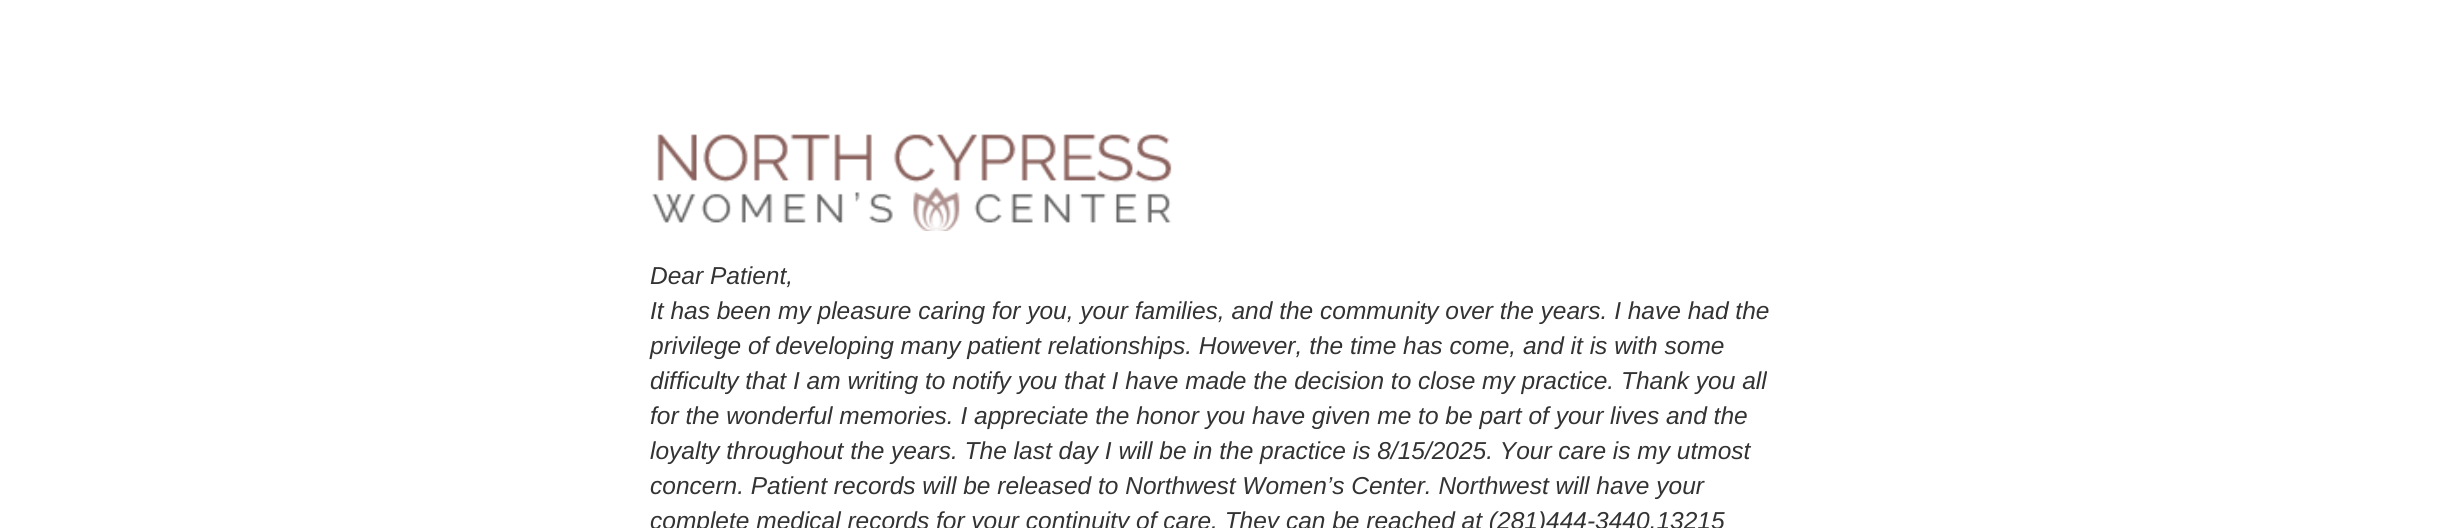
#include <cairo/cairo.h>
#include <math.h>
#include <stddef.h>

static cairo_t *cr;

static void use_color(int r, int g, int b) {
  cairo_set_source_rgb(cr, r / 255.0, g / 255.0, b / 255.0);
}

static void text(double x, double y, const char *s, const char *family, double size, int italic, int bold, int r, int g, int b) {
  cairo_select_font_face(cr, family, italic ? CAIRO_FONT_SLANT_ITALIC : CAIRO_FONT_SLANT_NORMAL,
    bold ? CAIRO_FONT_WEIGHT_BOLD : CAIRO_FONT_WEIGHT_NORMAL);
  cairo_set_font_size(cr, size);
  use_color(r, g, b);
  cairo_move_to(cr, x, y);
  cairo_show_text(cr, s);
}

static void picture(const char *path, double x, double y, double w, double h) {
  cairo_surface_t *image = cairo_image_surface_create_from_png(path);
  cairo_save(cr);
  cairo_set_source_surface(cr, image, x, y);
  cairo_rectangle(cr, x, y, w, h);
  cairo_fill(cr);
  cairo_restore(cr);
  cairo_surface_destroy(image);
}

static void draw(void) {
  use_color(255, 255, 255);
  cairo_paint(cr);
  picture("img_01.png", 652, 134, 520, 97);
  text(650, 284, "Dear Patient,", "Liberation Sans", 24.5, 1, 0, 51, 51, 51);
  text(650, 319, "It has been my pleasure caring for you, your families, and the community over the years. I have had the", "Liberation Sans", 24.5, 1, 0, 51, 51, 51);
  text(650, 354, "privilege of developing many patient relationships. However, the time has come, and it is with some", "Liberation Sans", 24.5, 1, 0, 51, 51, 51);
  text(650, 389, "difficulty that I am writing to notify you that I have made the decision to close my practice. Thank you all", "Liberation Sans", 24.5, 1, 0, 51, 51, 51);
  text(650, 424, "for the wonderful memories. I appreciate the honor you have given me to be part of your lives and the", "Liberation Sans", 24.5, 1, 0, 51, 51, 51);
  text(650, 459, "loyalty throughout the years. The last day I will be in the practice is 8/15/2025. Your care is my utmost", "Liberation Sans", 24.5, 1, 0, 51, 51, 51);
  text(650, 494, "concern. Patient records will be released to Northwest Women’s Center. Northwest will have your", "Liberation Sans", 24.5, 1, 0, 51, 51, 51);
  text(650, 529, "complete medical records for your continuity of care. They can be reached at (281)444-3440,13215", "Liberation Sans", 24.5, 1, 0, 51, 51, 51);
}

int main(void) {
  cairo_surface_t *surface = cairo_image_surface_create(CAIRO_FORMAT_RGB24, 2437, 528);
  cr = cairo_create(surface);
  cairo_font_options_t *options = cairo_font_options_create();
  cairo_font_options_set_hint_metrics(options, CAIRO_HINT_METRICS_OFF);
  cairo_font_options_set_hint_style(options, CAIRO_HINT_STYLE_NONE);
  cairo_set_font_options(cr, options);
  cairo_set_miter_limit(cr, 4);
  draw();
  cairo_surface_write_to_png(surface, "out.png");
  cairo_font_options_destroy(options);
  cairo_destroy(cr);
  cairo_surface_destroy(surface);
  return 0;
}
